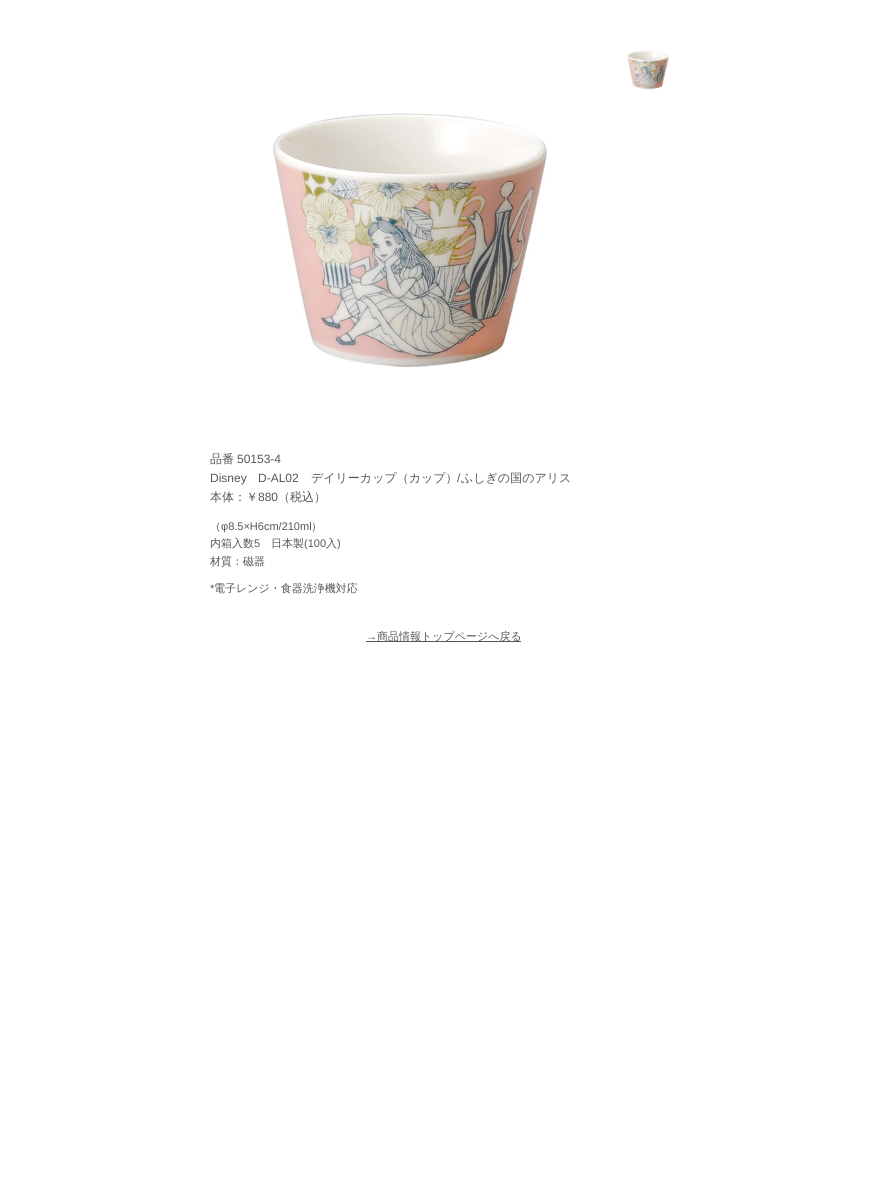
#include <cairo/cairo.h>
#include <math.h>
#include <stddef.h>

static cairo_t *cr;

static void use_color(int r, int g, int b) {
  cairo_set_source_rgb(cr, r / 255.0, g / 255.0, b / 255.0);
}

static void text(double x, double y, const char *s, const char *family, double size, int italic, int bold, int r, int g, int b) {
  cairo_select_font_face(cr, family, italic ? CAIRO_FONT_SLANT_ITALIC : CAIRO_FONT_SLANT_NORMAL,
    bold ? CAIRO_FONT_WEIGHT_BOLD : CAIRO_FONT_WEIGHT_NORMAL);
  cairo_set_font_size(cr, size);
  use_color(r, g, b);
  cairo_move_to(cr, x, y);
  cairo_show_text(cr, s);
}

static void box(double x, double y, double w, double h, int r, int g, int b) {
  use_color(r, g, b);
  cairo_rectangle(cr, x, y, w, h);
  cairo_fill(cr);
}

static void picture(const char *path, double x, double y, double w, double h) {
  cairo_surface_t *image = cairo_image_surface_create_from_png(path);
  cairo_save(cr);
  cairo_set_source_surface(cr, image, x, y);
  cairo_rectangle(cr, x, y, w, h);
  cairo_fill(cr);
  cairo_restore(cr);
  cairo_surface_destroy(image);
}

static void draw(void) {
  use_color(255, 255, 255);
  cairo_paint(cr);
  picture("img_01.png", 627, 50, 42, 40);
  picture("img_02.png", 273, 113, 274, 255);
  box(366, 641, 155, 1, 85, 85, 85);
  text(210, 463, "品番", "WenQuanYi Zen Hei Medium", 12, 0, 0, 85, 85, 85);
  text(237, 463, "50153-4", "Liberation Sans", 12, 0, 0, 85, 85, 85);
  text(210, 482, "Disney", "Liberation Sans", 12, 0, 0, 85, 85, 85);
  text(258, 482, "D-AL02", "Liberation Sans", 12, 0, 0, 85, 85, 85);
  text(311, 482, "デイリーカップ（カップ）", "WenQuanYi Zen Hei Medium", 12, 0, 0, 85, 85, 85);
  text(457, 482, "/", "Liberation Sans", 12, 0, 0, 85, 85, 85);
  text(461, 482, "ふしぎの国のアリス", "WenQuanYi Zen Hei Medium", 12, 0, 0, 85, 85, 85);
  text(210, 501, "本体：￥", "WenQuanYi Zen Hei Medium", 12, 0, 0, 85, 85, 85);
  text(258, 501, "880", "Liberation Sans", 12, 0, 0, 85, 85, 85);
  text(278, 501, "（税込）", "WenQuanYi Zen Hei Medium", 12, 0, 0, 85, 85, 85);
  text(210, 530, "（", "WenQuanYi Zen Hei Medium", 11, 0, 0, 85, 85, 85);
  text(221, 530, "φ8.5×H6cm/210ml", "Liberation Sans", 11, 0, 0, 85, 85, 85);
  text(311, 530, "）", "WenQuanYi Zen Hei Medium", 11, 0, 0, 85, 85, 85);
  text(210, 547, "内箱入数", "WenQuanYi Zen Hei Medium", 11, 0, 0, 85, 85, 85);
  text(254, 547, "5", "Liberation Sans", 11, 0, 0, 85, 85, 85);
  text(271, 547, "日本製", "WenQuanYi Zen Hei Medium", 11, 0, 0, 85, 85, 85);
  text(304, 547, "(100", "Liberation Sans", 11, 0, 0, 85, 85, 85);
  text(326, 547, "入", "WenQuanYi Zen Hei Medium", 11, 0, 0, 85, 85, 85);
  text(337, 547, ")", "Liberation Sans", 11, 0, 0, 85, 85, 85);
  text(210, 565, "材質：磁器", "WenQuanYi Zen Hei Medium", 11, 0, 0, 85, 85, 85);
  text(210, 592, "*", "Liberation Sans", 11, 0, 0, 85, 85, 85);
  text(214, 592, "電子レンジ・食器洗浄機対応", "WenQuanYi Zen Hei Medium", 11, 0, 0, 85, 85, 85);
  text(366, 640, "→", "Liberation Sans", 11, 0, 0, 85, 85, 85);
  text(377, 640, "商品情報トップページへ戻る", "WenQuanYi Zen Hei Medium", 11, 0, 0, 85, 85, 85);
}

int main(void) {
  cairo_surface_t *surface = cairo_image_surface_create(CAIRO_FORMAT_RGB24, 887, 1182);
  cr = cairo_create(surface);
  cairo_font_options_t *options = cairo_font_options_create();
  cairo_font_options_set_hint_metrics(options, CAIRO_HINT_METRICS_OFF);
  cairo_font_options_set_hint_style(options, CAIRO_HINT_STYLE_NONE);
  cairo_set_font_options(cr, options);
  cairo_set_miter_limit(cr, 4);
  draw();
  cairo_surface_write_to_png(surface, "out.png");
  cairo_font_options_destroy(options);
  cairo_destroy(cr);
  cairo_surface_destroy(surface);
  return 0;
}
